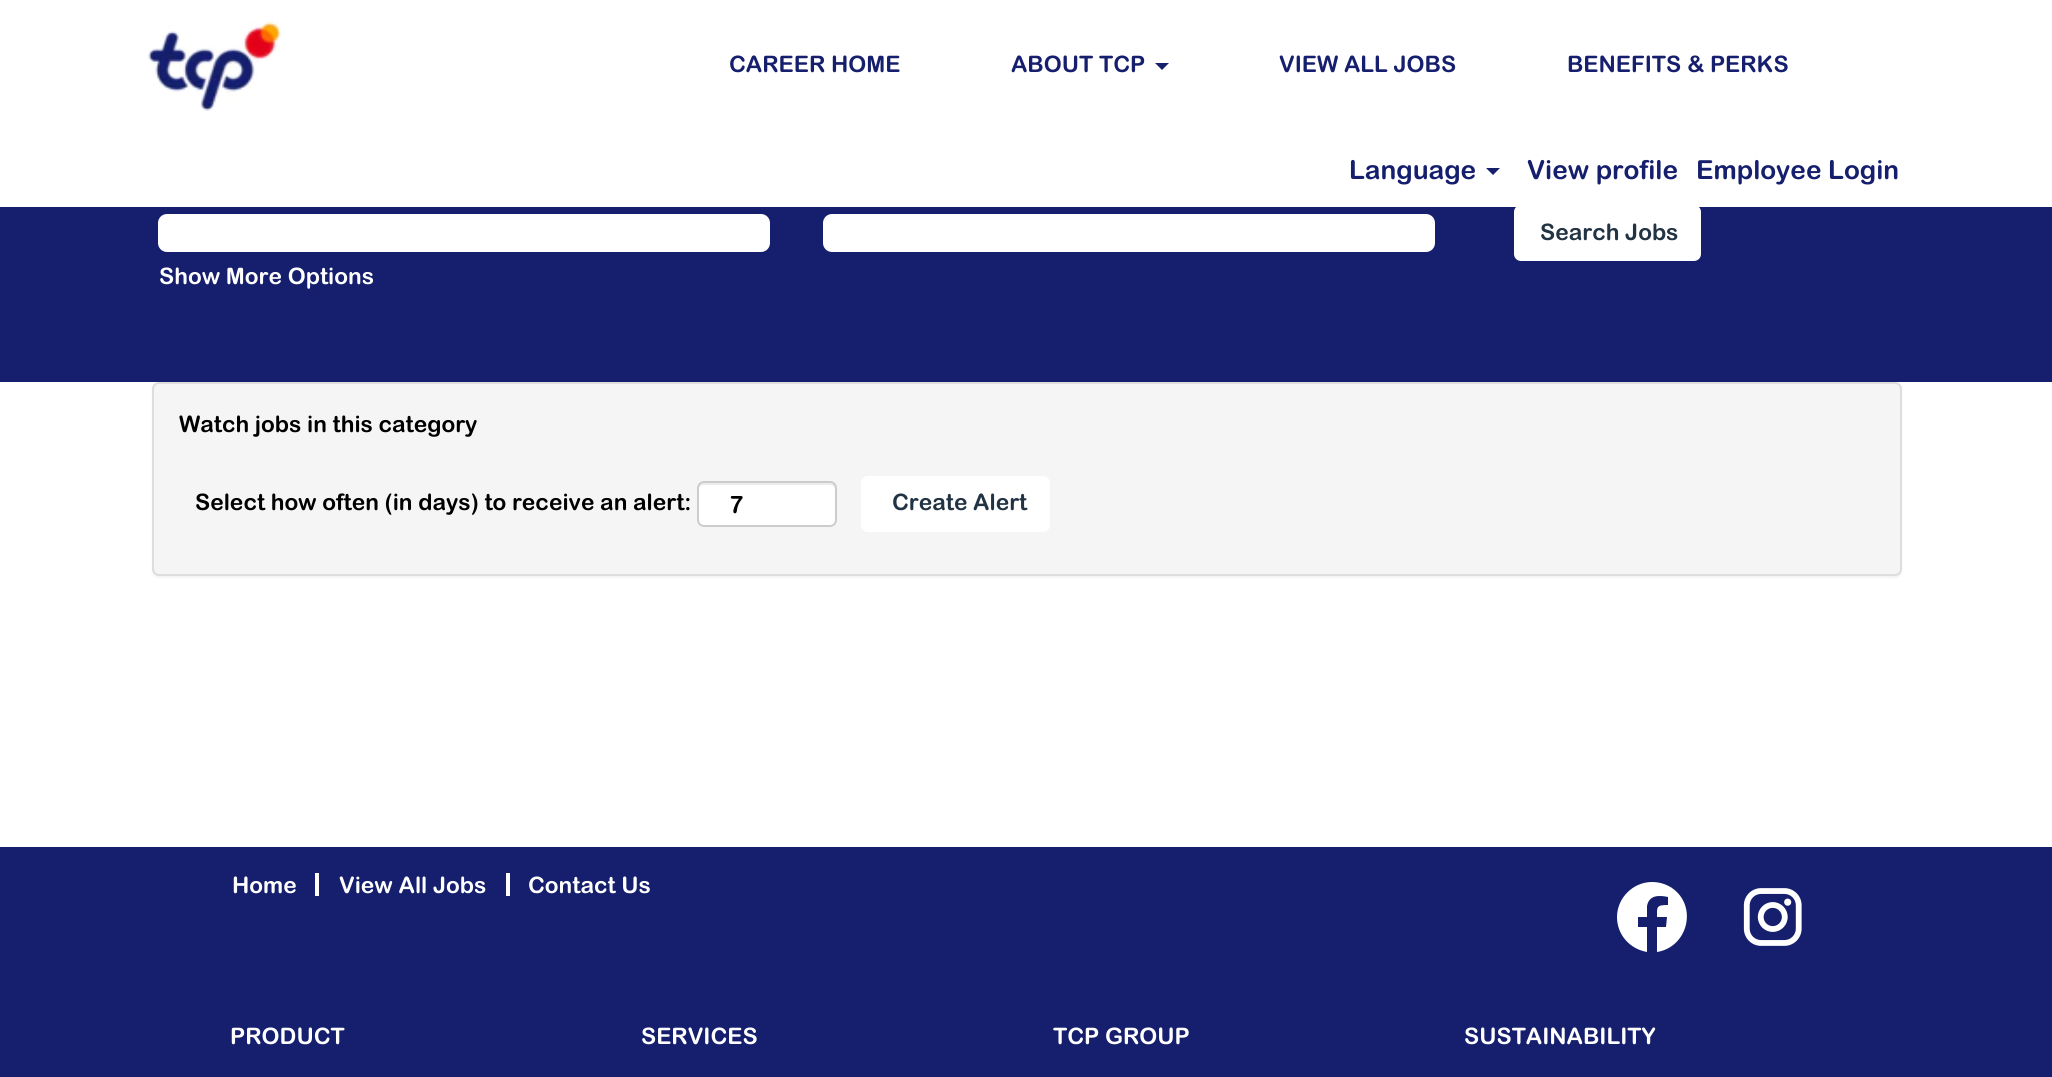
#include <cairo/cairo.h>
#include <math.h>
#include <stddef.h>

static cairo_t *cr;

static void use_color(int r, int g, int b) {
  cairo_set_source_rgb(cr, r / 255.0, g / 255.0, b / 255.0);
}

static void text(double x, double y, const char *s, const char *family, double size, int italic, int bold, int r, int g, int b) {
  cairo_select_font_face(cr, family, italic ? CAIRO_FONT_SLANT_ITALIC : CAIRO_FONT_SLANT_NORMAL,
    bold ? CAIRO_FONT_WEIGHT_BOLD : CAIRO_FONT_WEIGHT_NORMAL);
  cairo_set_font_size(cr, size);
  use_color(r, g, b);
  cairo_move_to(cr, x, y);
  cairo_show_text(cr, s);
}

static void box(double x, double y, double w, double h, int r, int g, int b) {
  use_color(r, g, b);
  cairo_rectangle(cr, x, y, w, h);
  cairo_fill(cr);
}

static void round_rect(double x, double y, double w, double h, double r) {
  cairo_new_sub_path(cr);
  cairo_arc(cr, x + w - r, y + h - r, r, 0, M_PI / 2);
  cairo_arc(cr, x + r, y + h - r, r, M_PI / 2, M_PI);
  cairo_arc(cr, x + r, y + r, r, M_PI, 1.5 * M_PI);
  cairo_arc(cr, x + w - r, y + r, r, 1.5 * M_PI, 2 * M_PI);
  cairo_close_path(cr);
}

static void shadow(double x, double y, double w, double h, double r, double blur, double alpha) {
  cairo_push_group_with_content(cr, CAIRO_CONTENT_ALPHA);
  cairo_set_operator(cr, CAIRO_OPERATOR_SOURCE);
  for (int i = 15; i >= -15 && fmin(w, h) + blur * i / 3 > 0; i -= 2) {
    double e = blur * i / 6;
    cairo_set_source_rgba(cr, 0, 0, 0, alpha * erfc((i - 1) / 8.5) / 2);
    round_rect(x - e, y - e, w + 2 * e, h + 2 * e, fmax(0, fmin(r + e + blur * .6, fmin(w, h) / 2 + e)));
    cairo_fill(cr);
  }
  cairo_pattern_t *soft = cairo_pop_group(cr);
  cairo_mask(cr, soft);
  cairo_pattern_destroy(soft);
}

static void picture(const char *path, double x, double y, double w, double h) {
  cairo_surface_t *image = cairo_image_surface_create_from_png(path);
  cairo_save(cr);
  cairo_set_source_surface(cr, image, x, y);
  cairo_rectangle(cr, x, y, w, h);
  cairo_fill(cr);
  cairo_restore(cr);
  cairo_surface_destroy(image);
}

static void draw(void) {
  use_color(255, 255, 255);
  cairo_paint(cr);
  picture("img_01.png", 146, 20, 135, 91);
  use_color(21, 31, 109);
  cairo_new_path(cr);
  cairo_move_to(cr, 1155, 63);
  cairo_line_to(cr, 1169, 63);
  cairo_line_to(cr, 1162, 70);
  cairo_close_path(cr);
  cairo_fill(cr);
  cairo_new_path(cr);
  cairo_move_to(cr, 1486, 168);
  cairo_line_to(cr, 1500, 168);
  cairo_line_to(cr, 1493, 175);
  cairo_close_path(cr);
  cairo_fill(cr);
  box(0, 207, 2052, 175, 21, 31, 109);
  use_color(255, 255, 255);
  round_rect(1514, 205, 187, 56, 7);
  cairo_fill(cr);
  round_rect(158, 214, 612, 38, 9);
  cairo_fill(cr);
  round_rect(823, 214, 612, 38, 9);
  cairo_fill(cr);
  use_color(0, 0, 0);
  shadow(152, 383, 1750, 195, 7, 1, 0.05);
  use_color(245, 245, 245);
  round_rect(153, 383, 1748, 192, 6);
  cairo_fill_preserve(cr);
  use_color(221, 221, 221);
  cairo_stroke(cr);
  use_color(255, 255, 255);
  round_rect(697, 481, 140, 46, 7);
  cairo_fill(cr);
  use_color(236, 236, 236);
  cairo_new_path(cr);
  cairo_move_to(cr, 704, 485);
  cairo_line_to(cr, 830, 485);
  cairo_curve_to(cr, 832, 485, 835, 487, 835, 490);
  cairo_line_to(cr, 835, 488);
  cairo_curve_to(cr, 835, 485, 833, 483, 830, 483);
  cairo_line_to(cr, 703, 483);
  cairo_curve_to(cr, 700, 483, 698, 485, 698, 488);
  cairo_line_to(cr, 698, 490);
  cairo_curve_to(cr, 698, 487, 701, 485, 704, 485);
  cairo_close_path(cr);
  cairo_fill(cr);
  round_rect(698, 482, 138, 44, 6);
  use_color(204, 204, 204);
  cairo_stroke(cr);
  use_color(255, 255, 255);
  round_rect(861, 476, 189, 56, 7);
  cairo_fill(cr);
  box(0, 847, 2052, 230, 21, 31, 109);
  box(315, 873, 4, 23, 255, 255, 255);
  box(506, 873, 4, 23, 255, 255, 255);
  cairo_new_path(cr);
  cairo_move_to(cr, 1652, 882);
  cairo_curve_to(cr, 1633, 882, 1617, 898, 1617, 917);
  cairo_curve_to(cr, 1617, 935, 1630, 949, 1647, 952);
  cairo_line_to(cr, 1647, 927);
  cairo_line_to(cr, 1638, 927);
  cairo_line_to(cr, 1638, 917);
  cairo_line_to(cr, 1647, 917);
  cairo_line_to(cr, 1647, 906);
  cairo_curve_to(cr, 1649, 895, 1659, 895, 1668, 897);
  cairo_line_to(cr, 1668, 905);
  cairo_curve_to(cr, 1656, 905, 1657, 907, 1657, 917);
  cairo_line_to(cr, 1667, 917);
  cairo_line_to(cr, 1666, 927);
  cairo_line_to(cr, 1657, 927);
  cairo_line_to(cr, 1657, 952);
  cairo_curve_to(cr, 1688, 947, 1698, 906, 1672, 888);
  cairo_curve_to(cr, 1666, 884, 1659, 882, 1652, 882);
  cairo_close_path(cr);
  cairo_fill(cr);
  picture("img_02.png", 1743, 888, 59, 58);
  text(729, 72, "CAREER HOME", "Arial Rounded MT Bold", 22.75, 0, 1, 21, 31, 109);
  text(1011, 72, "ABOUT TCP", "Arial Rounded MT Bold", 22.75, 0, 1, 21, 31, 109);
  text(1279, 72, "VIEW ALL JOBS", "Arial Rounded MT Bold", 22.75, 0, 1, 21, 31, 109);
  text(1567, 72, "BENEFITS & PERKS", "Arial Rounded MT Bold", 22.75, 0, 1, 21, 31, 109);
  text(1349, 179, "Language", "Arial Rounded MT Bold", 26.25, 0, 1, 21, 31, 109);
  text(1527, 179, "View profile", "Arial Rounded MT Bold", 26.25, 0, 1, 21, 31, 109);
  text(1696, 179, "Employee Login", "Arial Rounded MT Bold", 26.25, 0, 1, 21, 31, 109);
  text(1540, 240, "Search Jobs", "Arial Rounded MT Bold", 22.75, 0, 1, 34, 51, 68);
  text(159, 284, "Show More Options", "Arial Rounded MT Bold", 22.75, 0, 1, 255, 255, 255);
  text(179, 432, "Watch jobs in this category", "Arial Rounded MT Bold", 22.75, 0, 1, 0, 0, 0);
  text(195, 510, "Select how often (in days) to receive an alert:", "Arial Rounded MT Bold", 22.75, 0, 1, 0, 0, 0);
  text(729, 513, "7", "Arial Rounded MT Bold", 24, 0, 1, 0, 0, 0);
  text(892, 510, "Create Alert", "Arial Rounded MT Bold", 22.75, 0, 1, 34, 51, 68);
  text(232, 893, "Home", "Arial Rounded MT Bold", 22.75, 0, 1, 255, 255, 255);
  text(339, 893, "View All Jobs", "Arial Rounded MT Bold", 22.75, 0, 1, 255, 255, 255);
  text(528, 893, "Contact Us", "Arial Rounded MT Bold", 22.75, 0, 1, 255, 255, 255);
  text(230, 1044, "PRODUCT", "Arial Rounded MT Bold", 22.75, 0, 1, 255, 255, 255);
  text(641, 1044, "SERVICES", "Arial Rounded MT Bold", 22.75, 0, 1, 255, 255, 255);
  text(1053, 1044, "TCP GROUP", "Arial Rounded MT Bold", 22.75, 0, 1, 255, 255, 255);
  text(1464, 1044, "SUSTAINABILITY", "Arial Rounded MT Bold", 22.75, 0, 1, 255, 255, 255);
}

int main(void) {
  cairo_surface_t *surface = cairo_image_surface_create(CAIRO_FORMAT_RGB24, 2052, 1077);
  cr = cairo_create(surface);
  cairo_font_options_t *options = cairo_font_options_create();
  cairo_font_options_set_hint_metrics(options, CAIRO_HINT_METRICS_OFF);
  cairo_font_options_set_hint_style(options, CAIRO_HINT_STYLE_NONE);
  cairo_set_font_options(cr, options);
  cairo_set_miter_limit(cr, 4);
  draw();
  cairo_surface_write_to_png(surface, "out.png");
  cairo_font_options_destroy(options);
  cairo_destroy(cr);
  cairo_surface_destroy(surface);
  return 0;
}
